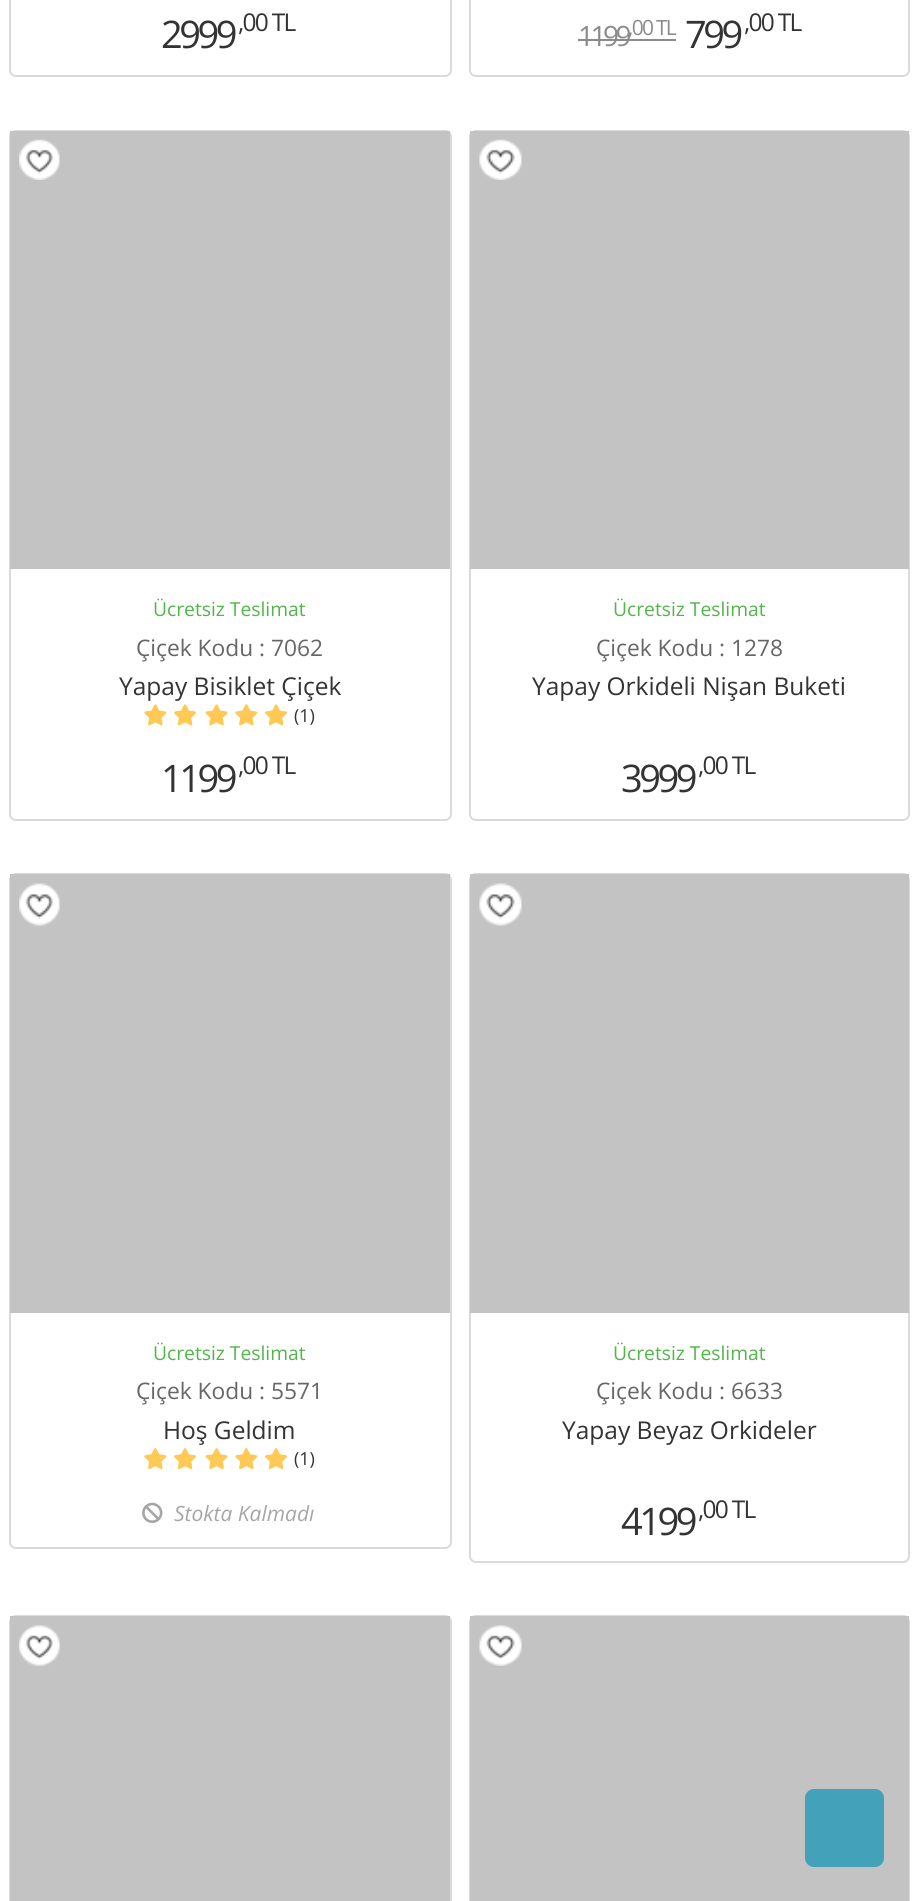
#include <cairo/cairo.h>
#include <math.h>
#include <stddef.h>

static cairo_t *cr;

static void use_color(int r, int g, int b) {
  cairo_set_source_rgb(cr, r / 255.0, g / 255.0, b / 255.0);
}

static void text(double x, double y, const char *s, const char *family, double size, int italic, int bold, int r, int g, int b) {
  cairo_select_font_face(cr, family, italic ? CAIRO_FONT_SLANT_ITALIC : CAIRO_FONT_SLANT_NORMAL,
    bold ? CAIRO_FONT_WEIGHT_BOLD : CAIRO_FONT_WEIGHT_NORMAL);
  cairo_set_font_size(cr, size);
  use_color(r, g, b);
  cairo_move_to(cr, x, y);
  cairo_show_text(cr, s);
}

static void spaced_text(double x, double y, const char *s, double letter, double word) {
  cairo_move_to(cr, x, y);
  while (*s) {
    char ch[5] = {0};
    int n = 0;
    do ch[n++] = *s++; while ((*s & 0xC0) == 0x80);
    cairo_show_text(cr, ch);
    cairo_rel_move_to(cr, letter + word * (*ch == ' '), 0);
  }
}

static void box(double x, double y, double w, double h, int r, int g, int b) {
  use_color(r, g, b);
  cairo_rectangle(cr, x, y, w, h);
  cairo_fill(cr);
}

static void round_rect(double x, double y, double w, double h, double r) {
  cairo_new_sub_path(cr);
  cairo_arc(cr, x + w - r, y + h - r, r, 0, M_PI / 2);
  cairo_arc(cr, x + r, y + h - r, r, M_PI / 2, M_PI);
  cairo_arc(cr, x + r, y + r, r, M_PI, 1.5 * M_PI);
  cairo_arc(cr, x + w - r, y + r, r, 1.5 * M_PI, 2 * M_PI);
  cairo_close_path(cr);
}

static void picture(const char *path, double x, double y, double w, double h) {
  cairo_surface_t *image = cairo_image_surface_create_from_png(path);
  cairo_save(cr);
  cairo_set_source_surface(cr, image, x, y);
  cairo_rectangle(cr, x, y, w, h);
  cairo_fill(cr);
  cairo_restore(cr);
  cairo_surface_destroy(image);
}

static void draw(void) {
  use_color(255, 255, 255);
  cairo_paint(cr);
  round_rect(10, -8, 441, 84, 6);
  use_color(218, 218, 218);
  cairo_stroke(cr);
  round_rect(470, -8, 439, 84, 6);
  cairo_stroke(cr);
  box(578, 39, 98, 2, 139, 139, 139);
  round_rect(10, 131, 441, 689, 6);
  use_color(218, 218, 218);
  cairo_stroke(cr);
  box(10, 131, 440, 438, 195, 195, 195);
  picture("img_01.png", 19, 139, 41, 41);
  picture("img_02.png", 144, 704, 23, 22);
  picture("img_03.png", 174, 704, 22, 22);
  picture("img_04.png", 205, 704, 23, 22);
  picture("img_02.png", 235, 704, 23, 22);
  picture("img_03.png", 265, 704, 22, 22);
  round_rect(470, 131, 439, 689, 6);
  use_color(218, 218, 218);
  cairo_stroke(cr);
  box(470, 131, 439, 438, 195, 195, 195);
  picture("img_05.png", 479, 139, 43, 41);
  round_rect(10, 874, 441, 674, 6);
  use_color(218, 218, 218);
  cairo_stroke(cr);
  box(10, 874, 440, 439, 195, 195, 195);
  picture("img_06.png", 19, 883, 41, 43);
  picture("img_07.png", 144, 1448, 23, 22);
  picture("img_08.png", 174, 1448, 22, 22);
  picture("img_09.png", 205, 1448, 23, 22);
  picture("img_07.png", 235, 1448, 23, 22);
  picture("img_08.png", 265, 1448, 22, 22);
  picture("img_10.png", 142, 1502, 21, 21);
  round_rect(470, 874, 439, 688, 6);
  use_color(218, 218, 218);
  cairo_stroke(cr);
  box(470, 874, 439, 439, 195, 195, 195);
  picture("img_11.png", 479, 883, 43, 43);
  round_rect(10, 1616, 441, 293, 6);
  use_color(218, 218, 218);
  cairo_stroke(cr);
  box(10, 1616, 440, 285, 195, 195, 195);
  picture("img_12.png", 19, 1625, 41, 41);
  round_rect(470, 1616, 439, 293, 6);
  use_color(218, 218, 218);
  cairo_stroke(cr);
  box(470, 1616, 439, 285, 195, 195, 195);
  picture("img_13.png", 479, 1625, 43, 41);
  use_color(67, 162, 186);
  round_rect(805, 1789, 79, 78, 9);
  cairo_fill(cr);
  cairo_select_font_face(cr, "Open Sans", CAIRO_FONT_SLANT_NORMAL, CAIRO_FONT_WEIGHT_NORMAL);
  cairo_set_font_size(cr, 38);
  use_color(51, 51, 51);
  spaced_text(161, 48, "2999", -3.5, 0);
  cairo_set_font_size(cr, 24.5);
  spaced_text(238, 31, ",00 TL", -1.75, 0);
  cairo_set_font_size(cr, 28);
  use_color(139, 139, 139);
  spaced_text(578, 46, "1199", -3.5, 0);
  cairo_set_font_size(cr, 21);
  spaced_text(628, 35, ",00 TL", -1.75, 0);
  cairo_set_font_size(cr, 38);
  use_color(51, 51, 51);
  spaced_text(685, 48, "799", -3.5, 0);
  cairo_set_font_size(cr, 24.5);
  spaced_text(744, 31, ",00 TL", -1.75, 0);
  text(153, 616, "Ücretsiz Teslimat", "Open Sans", 19.25, 0, 0, 81, 181, 73);
  text(136, 656, "Çiçek Kodu : 7062", "Open Sans", 22.75, 0, 0, 102, 102, 102);
  text(119, 695, "Yapay Bisiklet Çiçek", "Open Sans", 24.5, 0, 0, 51, 51, 51);
  text(294, 722, "(1)", "Open Sans", 18, 0, 0, 51, 51, 51);
  cairo_set_font_size(cr, 38);
  spaced_text(161, 792, "1199", -3.5, 0);
  cairo_set_font_size(cr, 24.5);
  spaced_text(238, 774, ",00 TL", -1.75, 0);
  text(613, 616, "Ücretsiz Teslimat", "Open Sans", 19.25, 0, 0, 81, 181, 73);
  text(596, 656, "Çiçek Kodu : 1278", "Open Sans", 22.75, 0, 0, 102, 102, 102);
  text(532, 695, "Yapay Orkideli Nişan Buketi", "Open Sans", 24.5, 0, 0, 51, 51, 51);
  cairo_set_font_size(cr, 38);
  spaced_text(621, 792, "3999", -3.5, 0);
  cairo_set_font_size(cr, 24.5);
  spaced_text(698, 774, ",00 TL", -1.75, 0);
  text(153, 1360, "Ücretsiz Teslimat", "Open Sans", 19.25, 0, 0, 81, 181, 73);
  text(136, 1399, "Çiçek Kodu : 5571", "Open Sans", 22.75, 0, 0, 102, 102, 102);
  text(163, 1439, "Hoş Geldim", "Open Sans", 24.5, 0, 0, 51, 51, 51);
  text(294, 1465, "(1)", "Open Sans", 18, 0, 0, 51, 51, 51);
  text(174, 1521, "Stokta Kalmadı", "Open Sans", 21, 1, 0, 166, 166, 166);
  text(613, 1360, "Ücretsiz Teslimat", "Open Sans", 19.25, 0, 0, 81, 181, 73);
  text(596, 1399, "Çiçek Kodu : 6633", "Open Sans", 22.75, 0, 0, 102, 102, 102);
  text(562, 1439, "Yapay Beyaz Orkideler", "Open Sans", 24.5, 0, 0, 51, 51, 51);
  cairo_set_font_size(cr, 38);
  spaced_text(621, 1535, "4199", -3.5, 0);
  cairo_set_font_size(cr, 24.5);
  spaced_text(698, 1518, ",00 TL", -1.75, 0);
}

int main(void) {
  cairo_surface_t *surface = cairo_image_surface_create(CAIRO_FORMAT_RGB24, 918, 1901);
  cr = cairo_create(surface);
  cairo_font_options_t *options = cairo_font_options_create();
  cairo_font_options_set_hint_metrics(options, CAIRO_HINT_METRICS_OFF);
  cairo_font_options_set_hint_style(options, CAIRO_HINT_STYLE_NONE);
  cairo_set_font_options(cr, options);
  cairo_set_miter_limit(cr, 4);
  draw();
  cairo_surface_write_to_png(surface, "out.png");
  cairo_font_options_destroy(options);
  cairo_destroy(cr);
  cairo_surface_destroy(surface);
  return 0;
}
